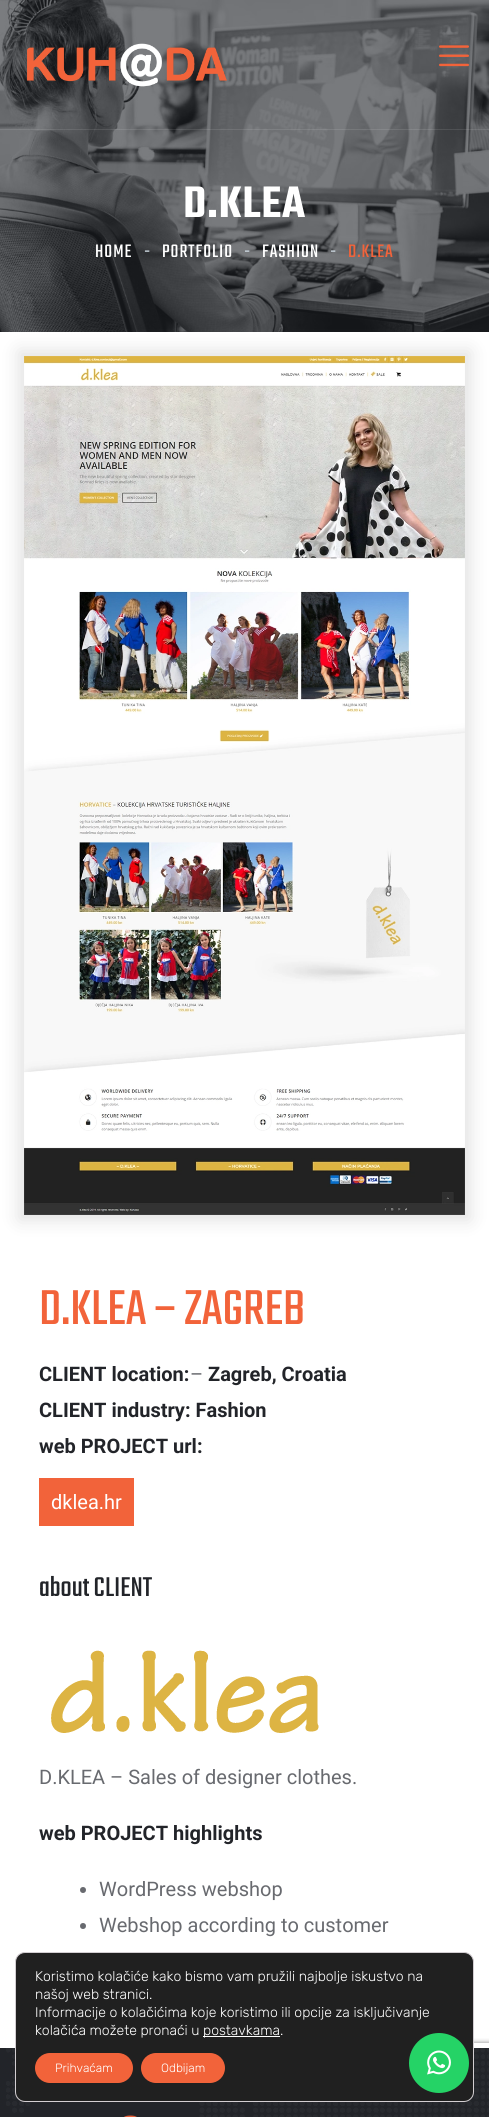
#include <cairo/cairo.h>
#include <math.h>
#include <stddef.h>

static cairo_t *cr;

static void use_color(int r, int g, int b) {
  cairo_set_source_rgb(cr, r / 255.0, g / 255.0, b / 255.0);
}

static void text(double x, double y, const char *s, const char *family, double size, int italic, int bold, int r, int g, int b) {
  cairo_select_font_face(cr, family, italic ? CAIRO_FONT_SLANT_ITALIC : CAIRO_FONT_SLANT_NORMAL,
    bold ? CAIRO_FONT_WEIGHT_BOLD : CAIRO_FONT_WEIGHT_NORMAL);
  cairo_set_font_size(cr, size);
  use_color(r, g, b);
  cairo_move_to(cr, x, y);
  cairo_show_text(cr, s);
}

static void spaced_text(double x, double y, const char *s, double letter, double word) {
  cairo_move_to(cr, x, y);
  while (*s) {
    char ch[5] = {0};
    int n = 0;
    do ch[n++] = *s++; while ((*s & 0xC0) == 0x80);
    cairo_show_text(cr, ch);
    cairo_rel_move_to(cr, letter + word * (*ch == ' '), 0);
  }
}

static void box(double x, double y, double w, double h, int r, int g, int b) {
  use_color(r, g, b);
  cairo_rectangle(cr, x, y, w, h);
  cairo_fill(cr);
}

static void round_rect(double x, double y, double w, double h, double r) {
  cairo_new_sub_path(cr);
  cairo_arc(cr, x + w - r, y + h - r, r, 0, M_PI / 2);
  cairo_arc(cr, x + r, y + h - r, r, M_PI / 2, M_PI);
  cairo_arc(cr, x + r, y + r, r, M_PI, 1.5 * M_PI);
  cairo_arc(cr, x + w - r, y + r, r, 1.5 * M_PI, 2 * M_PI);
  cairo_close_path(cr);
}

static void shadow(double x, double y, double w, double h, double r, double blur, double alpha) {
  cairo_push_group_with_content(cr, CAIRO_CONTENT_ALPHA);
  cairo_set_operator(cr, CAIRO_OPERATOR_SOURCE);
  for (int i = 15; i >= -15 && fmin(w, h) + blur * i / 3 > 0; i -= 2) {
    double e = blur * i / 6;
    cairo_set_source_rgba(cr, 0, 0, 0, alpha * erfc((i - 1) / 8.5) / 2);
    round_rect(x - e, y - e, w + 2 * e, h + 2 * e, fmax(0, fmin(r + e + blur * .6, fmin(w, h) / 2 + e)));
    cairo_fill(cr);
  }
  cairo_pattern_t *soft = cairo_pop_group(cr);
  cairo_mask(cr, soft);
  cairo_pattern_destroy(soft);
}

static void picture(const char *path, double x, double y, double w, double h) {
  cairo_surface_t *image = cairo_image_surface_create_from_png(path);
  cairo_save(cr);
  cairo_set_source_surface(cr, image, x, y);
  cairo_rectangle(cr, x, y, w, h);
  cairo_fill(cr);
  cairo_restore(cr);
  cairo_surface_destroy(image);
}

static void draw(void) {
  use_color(255, 255, 255);
  cairo_paint(cr);
  box(0, 0, 489, 332, 34, 36, 41);
  picture("img_03.png", 0, 0, 489, 332);
  cairo_set_source_rgba(cr, 1, 1, 1, 0.1);
  cairo_rectangle(cr, 0, 129, 489, 1);
  cairo_fill(cr);
  picture("img_01.png", 27, 43, 200, 44);
  picture("img_02.png", 439, 45, 30, 22);
  use_color(196, 196, 196);
  shadow(19, 351, 451, 869, 0, 9, 0.5);
  picture("img_04.png", 24, 356, 441, 859);
  box(39, 1478, 95, 48, 242, 99, 58);
  picture("img_05.png", 51, 1650, 268, 83);
  use_color(104, 106, 111);
  cairo_arc(cr, 83, 1890, 3, 0, 2 * M_PI);
  cairo_fill(cr);
  cairo_arc(cr, 83, 1926, 3, 0, 2 * M_PI);
  cairo_fill(cr);
  cairo_save(cr);
  cairo_rectangle(cr, 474, 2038, 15, 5);
  cairo_clip(cr);
  use_color(128, 128, 128);
  shadow(419, 2043, 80, 60, 2, 2.5, 1);
  cairo_restore(cr);
  box(0, 2048, 489, 69, 34, 36, 41);
  picture("img_06.png", 6, 2048, 483, 69);
  picture("img_07.png", 124, 2115, 13, 2);
  use_color(32, 32, 32);
  round_rect(15.5, 1952.5, 458, 149, 9.5);
  cairo_fill_preserve(cr);
  use_color(211, 206, 210);
  cairo_set_line_width(cr, 1);
  cairo_stroke(cr);
  box(203, 2036, 77, 1, 255, 255, 255);
  use_color(242, 99, 58);
  round_rect(35, 2053, 98, 30, 15);
  cairo_fill(cr);
  round_rect(141, 2053, 84, 30, 15);
  cairo_fill(cr);
  use_color(37, 211, 102);
  cairo_arc(cr, 439, 2063, 30, 0, 2 * M_PI);
  cairo_fill(cr);
  picture("img_08.png", 427, 2050, 24, 25);
  cairo_select_font_face(cr, "Teko SemiBold", CAIRO_FONT_SLANT_NORMAL, CAIRO_FONT_WEIGHT_NORMAL);
  cairo_set_font_size(cr, 48);
  use_color(255, 255, 255);
  spaced_text(183, 217, "D.KLEA", 1, 0);
  cairo_select_font_face(cr, "Teko", CAIRO_FONT_SLANT_NORMAL, CAIRO_FONT_WEIGHT_NORMAL);
  cairo_set_font_size(cr, 20);
  spaced_text(95, 257, "HOME", 1, 0);
  use_color(204, 214, 223);
  spaced_text(144, 257, "-", 1, 0);
  use_color(255, 255, 255);
  spaced_text(162, 257, "PORTFOLIO", 1, 0);
  use_color(204, 214, 223);
  spaced_text(244, 257, "-", 1, 0);
  use_color(255, 255, 255);
  spaced_text(262, 257, "FASHION", 1, 0);
  use_color(204, 214, 223);
  spaced_text(330, 257, "-", 1, 0);
  use_color(242, 99, 58);
  spaced_text(348, 257, "D.KLEA", 1, 0);
  text(39, 1324, "D.KLEA – ZAGREB", "Teko", 54, 0, 0, 242, 99, 58);
  text(39, 1381, "CLIENT location:", "Roboto", 20, 0, 1, 34, 36, 41);
  text(190, 1381, "–", "Roboto", 20, 0, 0, 104, 106, 111);
  text(208, 1381, "Zagreb, Croatia", "Roboto", 20, 0, 1, 34, 36, 41);
  text(39, 1417, "CLIENT industry: Fashion", "Roboto", 20, 0, 1, 34, 36, 41);
  text(39, 1453, "web PROJECT url:", "Roboto", 20, 0, 1, 34, 36, 41);
  text(51, 1509, "dklea.hr", "Roboto", 20, 0, 0, 255, 255, 255);
  text(39, 1596, "about CLIENT", "Teko", 30, 0, 0, 34, 36, 41);
  text(39, 1784, "D.KLEA – Sales of designer clothes.", "Roboto", 20, 0, 0, 104, 106, 111);
  text(39, 1840, "web PROJECT highlights", "Roboto", 20, 0, 1, 34, 36, 41);
  text(99, 1896, "WordPress webshop", "Roboto", 20, 0, 0, 104, 106, 111);
  text(99, 1932, "Webshop according to customer", "Roboto", 20, 0, 0, 104, 106, 111);
  text(35, 1981, "Koristimo kolačiće kako bismo vam pružili najbolje iskustvo na", "Rubik Light", 14, 0, 0, 255, 255, 255);
  text(35, 1999, "našoj web stranici.", "Rubik Light", 14, 0, 0, 255, 255, 255);
  text(35, 2017, "Informacije o kolačićima koje koristimo ili opcije za isključivanje", "Rubik Light", 14, 0, 0, 255, 255, 255);
  text(35, 2035, "kolačića možete pronaći u", "Rubik Light", 14, 0, 0, 255, 255, 255);
  text(203, 2035, "postavkama.", "Rubik Light", 14, 0, 0, 255, 255, 255);
  text(55, 2072, "Prihvaćam", "Rubik Light", 12, 0, 0, 255, 255, 255);
  text(161, 2072, "Odbijam", "Rubik Light", 12, 0, 0, 255, 255, 255);
}

int main(void) {
  cairo_surface_t *surface = cairo_image_surface_create(CAIRO_FORMAT_RGB24, 489, 2117);
  cr = cairo_create(surface);
  cairo_font_options_t *options = cairo_font_options_create();
  cairo_font_options_set_hint_metrics(options, CAIRO_HINT_METRICS_OFF);
  cairo_font_options_set_hint_style(options, CAIRO_HINT_STYLE_NONE);
  cairo_set_font_options(cr, options);
  cairo_set_miter_limit(cr, 4);
  draw();
  cairo_surface_write_to_png(surface, "out.png");
  cairo_font_options_destroy(options);
  cairo_destroy(cr);
  cairo_surface_destroy(surface);
  return 0;
}
